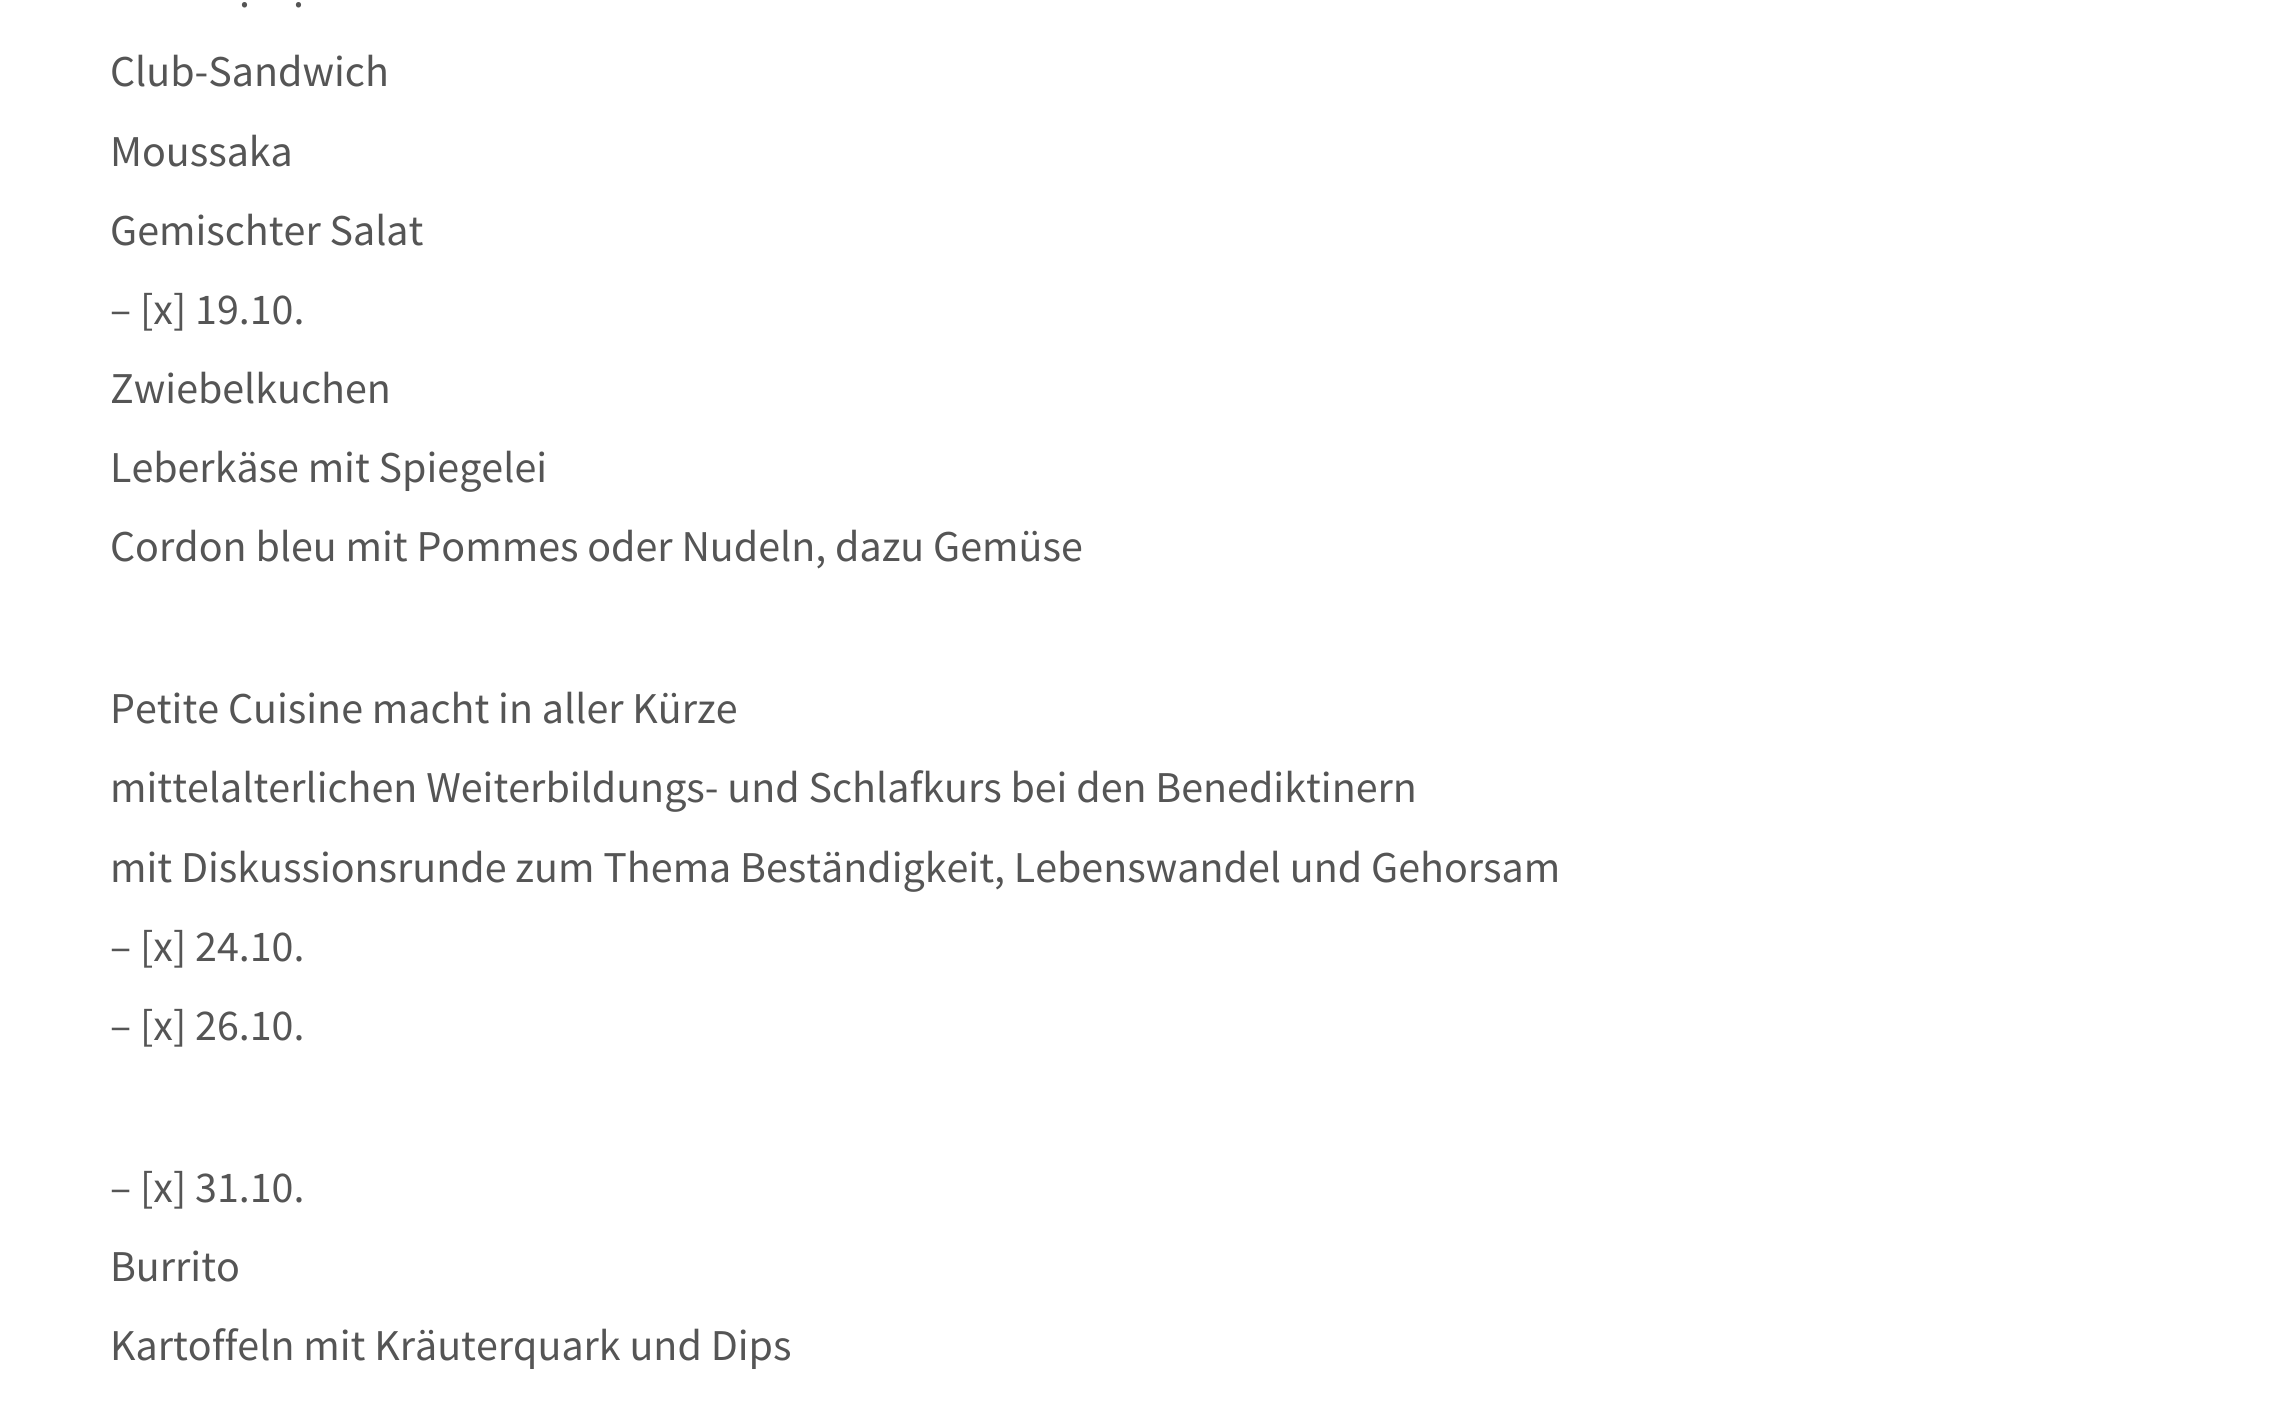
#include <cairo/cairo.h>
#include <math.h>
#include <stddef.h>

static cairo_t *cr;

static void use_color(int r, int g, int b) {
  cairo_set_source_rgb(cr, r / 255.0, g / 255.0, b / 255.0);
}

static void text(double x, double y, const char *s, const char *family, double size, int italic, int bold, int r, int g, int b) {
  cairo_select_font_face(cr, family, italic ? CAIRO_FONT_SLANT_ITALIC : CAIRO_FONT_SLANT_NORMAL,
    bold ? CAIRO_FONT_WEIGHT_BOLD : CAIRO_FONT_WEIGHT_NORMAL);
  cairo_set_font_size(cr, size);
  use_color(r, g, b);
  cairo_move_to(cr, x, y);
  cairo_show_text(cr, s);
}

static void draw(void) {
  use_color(255, 255, 255);
  cairo_paint(cr);
  text(239, 7, ".", "Source Sans Pro", 44, 0, 0, 85, 85, 85);
  text(293, 7, ".", "Source Sans Pro", 44, 0, 0, 85, 85, 85);
  text(110, 86, "Club-Sandwich", "Source Sans Pro", 44, 0, 0, 85, 85, 85);
  text(110, 166, "Moussaka", "Source Sans Pro", 44, 0, 0, 85, 85, 85);
  text(110, 245, "Gemischter Salat", "Source Sans Pro", 44, 0, 0, 85, 85, 85);
  text(110, 324, "– [x] 19.10.", "Source Sans Pro", 44, 0, 0, 85, 85, 85);
  text(110, 403, "Zwiebelkuchen", "Source Sans Pro", 44, 0, 0, 85, 85, 85);
  text(110, 482, "Leberkäse mit Spiegelei", "Source Sans Pro", 44, 0, 0, 85, 85, 85);
  text(110, 561, "Cordon bleu mit Pommes oder Nudeln, dazu Gemüse", "Source Sans Pro", 44, 0, 0, 85, 85, 85);
  text(110, 723, "Petite Cuisine macht in aller Kürze", "Source Sans Pro", 44, 0, 0, 85, 85, 85);
  text(110, 802, "mittelalterlichen Weiterbildungs- und Schlafkurs bei den Benediktinern", "Source Sans Pro", 44, 0, 0, 85, 85, 85);
  text(110, 882, "mit Diskussionsrunde zum Thema Beständigkeit, Lebenswandel und Gehorsam", "Source Sans Pro", 44, 0, 0, 85, 85, 85);
  text(110, 961, "– [x] 24.10.", "Source Sans Pro", 44, 0, 0, 85, 85, 85);
  text(110, 1040, "– [x] 26.10.", "Source Sans Pro", 44, 0, 0, 85, 85, 85);
  text(110, 1202, "– [x] 31.10.", "Source Sans Pro", 44, 0, 0, 85, 85, 85);
  text(110, 1281, "Burrito", "Source Sans Pro", 44, 0, 0, 85, 85, 85);
  text(110, 1360, "Kartoffeln mit Kräuterquark und Dips", "Source Sans Pro", 44, 0, 0, 85, 85, 85);
}

int main(void) {
  cairo_surface_t *surface = cairo_image_surface_create(CAIRO_FORMAT_RGB24, 2293, 1426);
  cr = cairo_create(surface);
  cairo_font_options_t *options = cairo_font_options_create();
  cairo_font_options_set_hint_metrics(options, CAIRO_HINT_METRICS_OFF);
  cairo_font_options_set_hint_style(options, CAIRO_HINT_STYLE_NONE);
  cairo_set_font_options(cr, options);
  cairo_set_miter_limit(cr, 4);
  draw();
  cairo_surface_write_to_png(surface, "out.png");
  cairo_font_options_destroy(options);
  cairo_destroy(cr);
  cairo_surface_destroy(surface);
  return 0;
}
